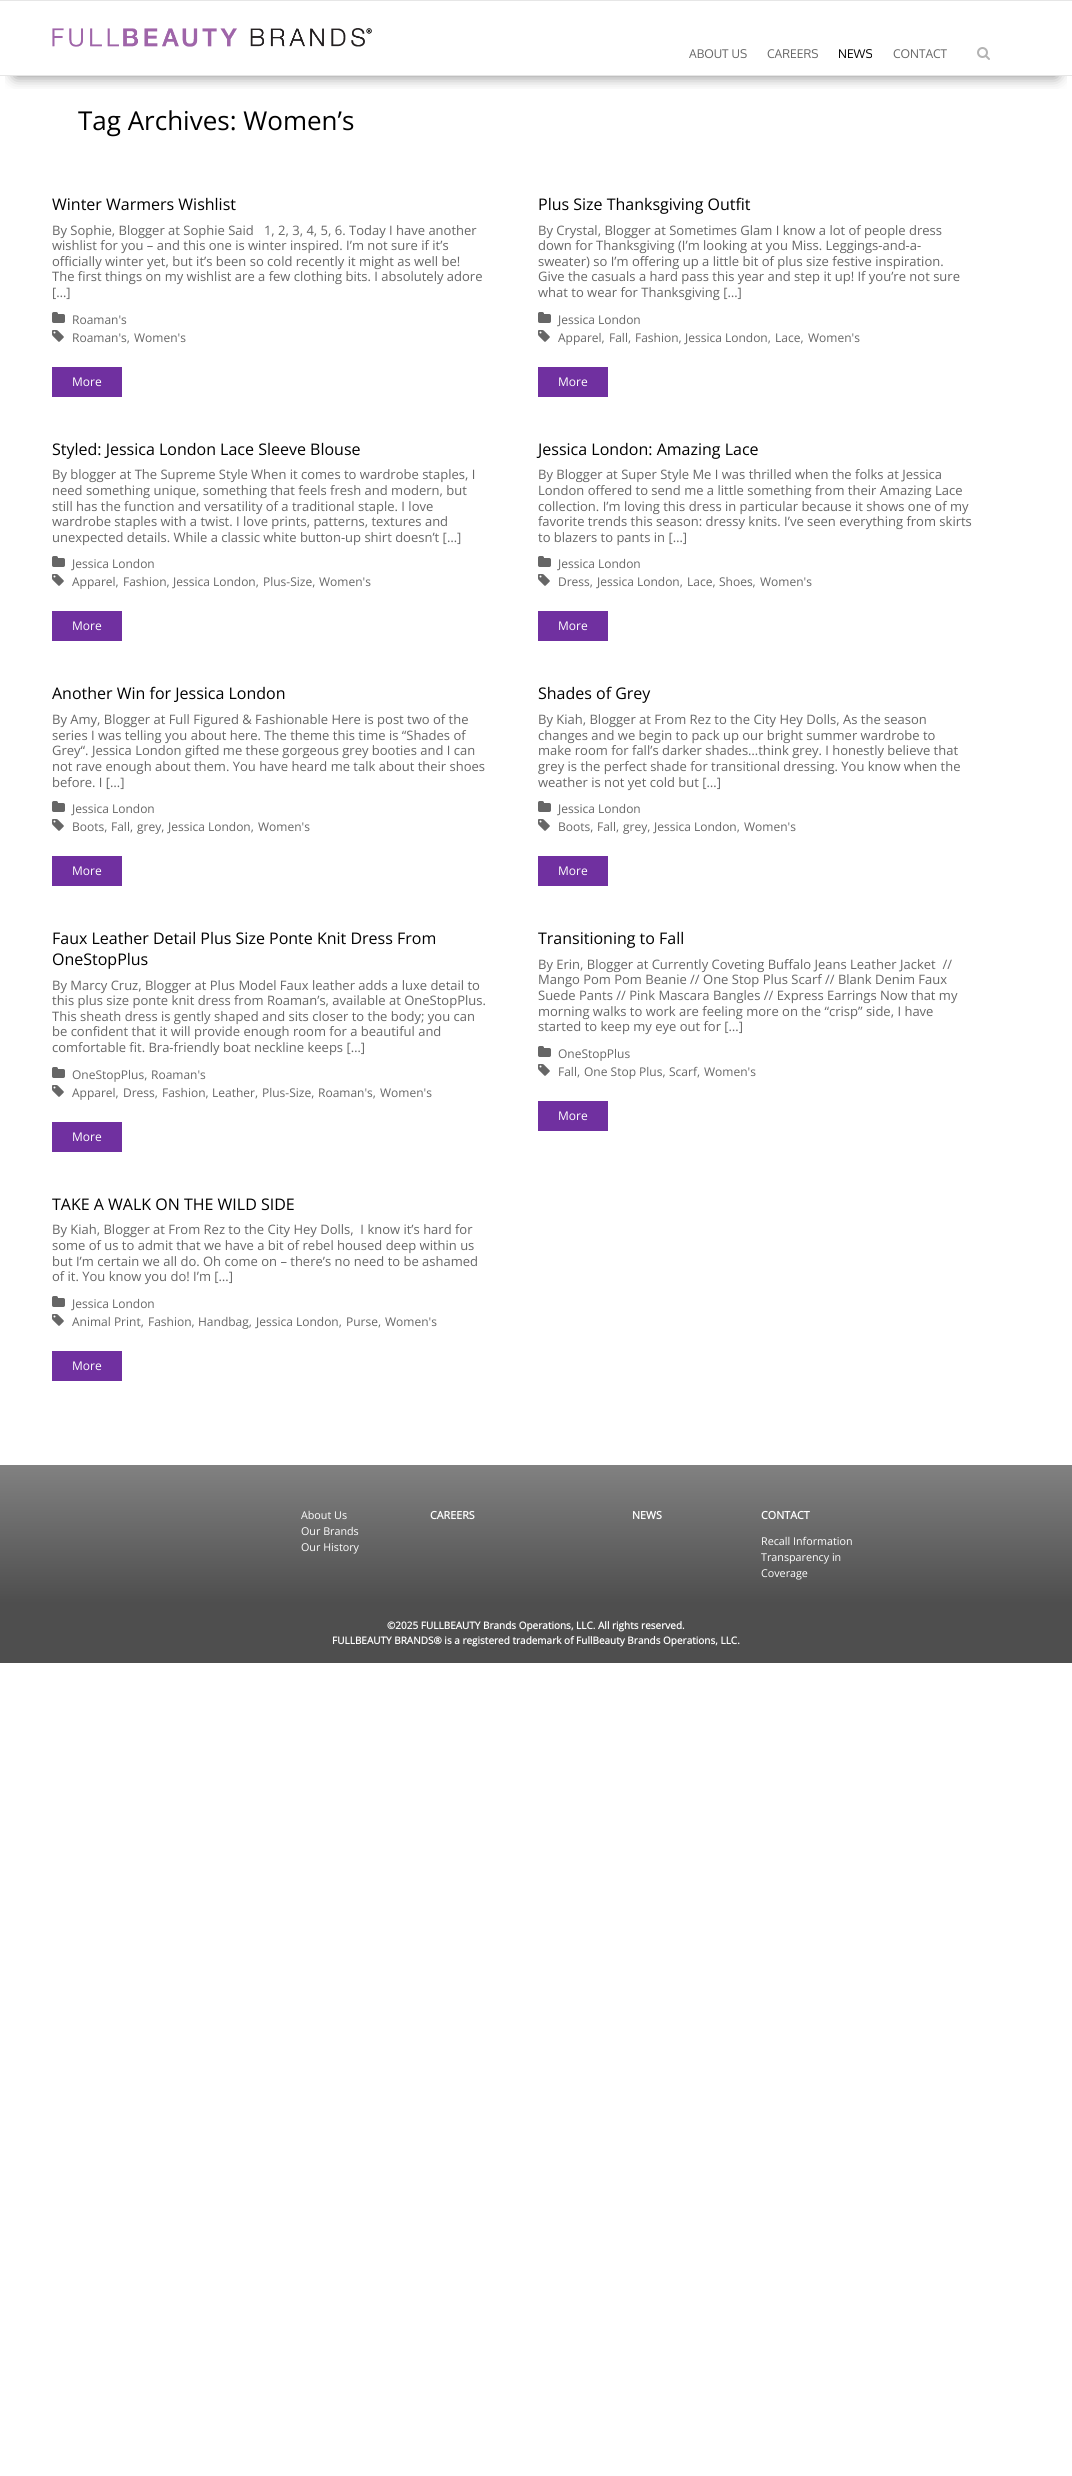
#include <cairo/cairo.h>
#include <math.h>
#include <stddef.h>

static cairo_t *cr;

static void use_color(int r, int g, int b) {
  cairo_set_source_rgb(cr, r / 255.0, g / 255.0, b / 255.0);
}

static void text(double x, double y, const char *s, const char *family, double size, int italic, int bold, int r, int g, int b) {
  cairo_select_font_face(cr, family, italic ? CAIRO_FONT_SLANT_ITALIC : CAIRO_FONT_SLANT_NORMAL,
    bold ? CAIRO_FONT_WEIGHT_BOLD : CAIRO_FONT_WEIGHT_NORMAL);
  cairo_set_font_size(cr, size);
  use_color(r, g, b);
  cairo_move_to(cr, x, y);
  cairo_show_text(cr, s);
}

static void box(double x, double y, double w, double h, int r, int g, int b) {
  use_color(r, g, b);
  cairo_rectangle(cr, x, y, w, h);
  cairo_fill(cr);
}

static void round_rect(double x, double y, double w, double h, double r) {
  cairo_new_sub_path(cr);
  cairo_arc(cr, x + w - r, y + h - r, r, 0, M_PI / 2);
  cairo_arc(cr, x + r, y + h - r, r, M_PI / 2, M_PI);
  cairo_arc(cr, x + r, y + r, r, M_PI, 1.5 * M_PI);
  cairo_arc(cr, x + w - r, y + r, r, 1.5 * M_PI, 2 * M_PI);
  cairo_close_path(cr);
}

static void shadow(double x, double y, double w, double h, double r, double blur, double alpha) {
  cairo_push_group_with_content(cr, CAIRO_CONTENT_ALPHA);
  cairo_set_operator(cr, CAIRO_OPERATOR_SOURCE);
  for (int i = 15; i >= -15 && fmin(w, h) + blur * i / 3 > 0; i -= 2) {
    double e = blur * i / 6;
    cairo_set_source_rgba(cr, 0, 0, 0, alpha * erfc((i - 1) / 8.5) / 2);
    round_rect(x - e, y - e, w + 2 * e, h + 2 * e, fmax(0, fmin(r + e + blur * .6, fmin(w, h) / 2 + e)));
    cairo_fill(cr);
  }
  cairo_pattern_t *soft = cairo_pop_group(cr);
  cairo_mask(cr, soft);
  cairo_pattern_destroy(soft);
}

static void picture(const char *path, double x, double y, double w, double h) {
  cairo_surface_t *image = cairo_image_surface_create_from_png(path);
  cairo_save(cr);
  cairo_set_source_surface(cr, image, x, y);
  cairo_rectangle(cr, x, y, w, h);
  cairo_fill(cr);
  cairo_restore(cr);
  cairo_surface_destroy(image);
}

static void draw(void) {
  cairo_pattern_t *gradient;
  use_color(255, 255, 255);
  cairo_paint(cr);
  box(0, 0, 1072, 1, 230, 230, 230);
  cairo_save(cr);
  cairo_rectangle(cr, 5, 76, 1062, 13);
  cairo_clip(cr);
  use_color(0, 0, 0);
  shadow(15, 31, 1042, 45, 0, 7.5, 0.5);
  cairo_restore(cr);
  picture("img_01.png", 52, 28, 320, 19);
  picture("img_02.png", 977, 47, 13, 13);
  box(0, 75, 1072, 1, 230, 230, 230);
  picture("img_03.png", 52, 312, 13, 11);
  picture("img_04.png", 52, 330, 12, 12);
  box(52, 367, 70, 30, 112, 48, 160);
  picture("img_03.png", 538, 312, 13, 11);
  picture("img_04.png", 538, 330, 12, 12);
  box(538, 367, 70, 30, 112, 48, 160);
  picture("img_03.png", 52, 556, 13, 11);
  picture("img_04.png", 52, 574, 12, 12);
  box(52, 611, 70, 30, 112, 48, 160);
  picture("img_03.png", 538, 556, 13, 11);
  picture("img_04.png", 538, 574, 12, 12);
  box(538, 611, 70, 30, 112, 48, 160);
  picture("img_03.png", 52, 801, 13, 11);
  picture("img_04.png", 52, 819, 12, 12);
  box(52, 856, 70, 30, 112, 48, 160);
  picture("img_03.png", 538, 801, 13, 11);
  picture("img_04.png", 538, 819, 12, 12);
  box(538, 856, 70, 30, 112, 48, 160);
  picture("img_03.png", 52, 1067, 13, 11);
  picture("img_04.png", 52, 1085, 12, 12);
  box(52, 1122, 70, 30, 112, 48, 160);
  picture("img_03.png", 538, 1046, 13, 11);
  picture("img_04.png", 538, 1064, 12, 12);
  box(538, 1101, 70, 30, 112, 48, 160);
  picture("img_03.png", 52, 1296, 13, 11);
  picture("img_04.png", 52, 1314, 12, 12);
  box(52, 1351, 70, 30, 112, 48, 160);
  gradient = cairo_pattern_create_linear(536, 1465, 536, 1603);
  cairo_pattern_add_color_stop_rgba(gradient, 0, 0.506, 0.506, 0.506, 1);
  cairo_pattern_add_color_stop_rgba(gradient, 1, 0.306, 0.306, 0.306, 1);
  cairo_set_source(cr, gradient);
  cairo_pattern_destroy(gradient);
  cairo_rectangle(cr, 0, 1465, 1072, 138);
  cairo_fill(cr);
  box(0, 1603, 1072, 60, 78, 78, 78);
  text(689, 58, "ABOUT US", "Oxygen", 12, 0, 0, 102, 102, 102);
  text(767, 58, "CAREERS", "Oxygen", 12, 0, 0, 102, 102, 102);
  text(838, 58, "NEWS", "Oxygen", 12, 0, 0, 0, 0, 0);
  text(893, 58, "CONTACT", "Oxygen", 12, 0, 0, 102, 102, 102);
  text(78, 130, "Tag Archives: Women’s", "Open Sans", 26, 0, 0, 0, 0, 0);
  text(52, 210, "Winter Warmers Wishlist", "Open Sans", 16, 0, 0, 0, 0, 0);
  text(52, 235, "By Sophie, Blogger at Sophie Said   1, 2, 3, 4, 5, 6. Today I have another", "Open Sans", 13, 0, 0, 102, 102, 102);
  text(52, 250, "wishlist for you – and this one is winter inspired. I’m not sure if it’s", "Open Sans", 13, 0, 0, 102, 102, 102);
  text(52, 266, "officially winter yet, but it’s been so cold recently it might as well be!", "Open Sans", 13, 0, 0, 102, 102, 102);
  text(52, 281, "The first things on my wishlist are a few clothing bits. I absolutely adore", "Open Sans", 13, 0, 0, 102, 102, 102);
  text(52, 297, "[…]", "Open Sans", 13, 0, 0, 102, 102, 102);
  text(72, 324, "Roaman's", "Open Sans", 12, 0, 0, 102, 102, 102);
  text(72, 342, "Roaman's,", "Open Sans", 12, 0, 0, 102, 102, 102);
  text(134, 342, "Women's", "Open Sans", 12, 0, 0, 102, 102, 102);
  text(72, 386, "More", "Open Sans", 12, 0, 0, 255, 255, 255);
  text(538, 210, "Plus Size Thanksgiving Outfit", "Open Sans", 16, 0, 0, 0, 0, 0);
  text(538, 235, "By Crystal, Blogger at Sometimes Glam I know a lot of people dress", "Open Sans", 13, 0, 0, 102, 102, 102);
  text(538, 250, "down for Thanksgiving (I’m looking at you Miss. Leggings-and-a-", "Open Sans", 13, 0, 0, 102, 102, 102);
  text(538, 266, "sweater) so I’m offering up a little bit of plus size festive inspiration.", "Open Sans", 13, 0, 0, 102, 102, 102);
  text(538, 281, "Give the casuals a hard pass this year and step it up! If you’re not sure", "Open Sans", 13, 0, 0, 102, 102, 102);
  text(538, 297, "what to wear for Thanksgiving […]", "Open Sans", 13, 0, 0, 102, 102, 102);
  text(558, 324, "Jessica London", "Open Sans", 12, 0, 0, 102, 102, 102);
  text(558, 342, "Apparel,", "Open Sans", 12, 0, 0, 102, 102, 102);
  text(609, 342, "Fall,", "Open Sans", 12, 0, 0, 102, 102, 102);
  text(635, 342, "Fashion,", "Open Sans", 12, 0, 0, 102, 102, 102);
  text(685, 342, "Jessica London,", "Open Sans", 12, 0, 0, 102, 102, 102);
  text(775, 342, "Lace,", "Open Sans", 12, 0, 0, 102, 102, 102);
  text(808, 342, "Women's", "Open Sans", 12, 0, 0, 102, 102, 102);
  text(558, 386, "More", "Open Sans", 12, 0, 0, 255, 255, 255);
  text(52, 455, "Styled: Jessica London Lace Sleeve Blouse", "Open Sans", 16, 0, 0, 0, 0, 0);
  text(52, 479, "By blogger at The Supreme Style When it comes to wardrobe staples, I", "Open Sans", 13, 0, 0, 102, 102, 102);
  text(52, 495, "need something unique, something that feels fresh and modern, but", "Open Sans", 13, 0, 0, 102, 102, 102);
  text(52, 511, "still has the function and versatility of a traditional staple. I love", "Open Sans", 13, 0, 0, 102, 102, 102);
  text(52, 526, "wardrobe staples with a twist. I love prints, patterns, textures and", "Open Sans", 13, 0, 0, 102, 102, 102);
  text(52, 542, "unexpected details. While a classic white button-up shirt doesn’t […]", "Open Sans", 13, 0, 0, 102, 102, 102);
  text(72, 568, "Jessica London", "Open Sans", 12, 0, 0, 102, 102, 102);
  text(72, 586, "Apparel,", "Open Sans", 12, 0, 0, 102, 102, 102);
  text(123, 586, "Fashion,", "Open Sans", 12, 0, 0, 102, 102, 102);
  text(173, 586, "Jessica London,", "Open Sans", 12, 0, 0, 102, 102, 102);
  text(263, 586, "Plus-Size,", "Open Sans", 12, 0, 0, 102, 102, 102);
  text(319, 586, "Women's", "Open Sans", 12, 0, 0, 102, 102, 102);
  text(72, 630, "More", "Open Sans", 12, 0, 0, 255, 255, 255);
  text(538, 455, "Jessica London: Amazing Lace", "Open Sans", 16, 0, 0, 0, 0, 0);
  text(538, 479, "By Blogger at Super Style Me I was thrilled when the folks at Jessica", "Open Sans", 13, 0, 0, 102, 102, 102);
  text(538, 495, "London offered to send me a little something from their Amazing Lace", "Open Sans", 13, 0, 0, 102, 102, 102);
  text(538, 511, "collection. I’m loving this dress in particular because it shows one of my", "Open Sans", 13, 0, 0, 102, 102, 102);
  text(538, 526, "favorite trends this season: dressy knits. I’ve seen everything from skirts", "Open Sans", 13, 0, 0, 102, 102, 102);
  text(538, 542, "to blazers to pants in […]", "Open Sans", 13, 0, 0, 102, 102, 102);
  text(558, 568, "Jessica London", "Open Sans", 12, 0, 0, 102, 102, 102);
  text(558, 586, "Dress,", "Open Sans", 12, 0, 0, 102, 102, 102);
  text(597, 586, "Jessica London,", "Open Sans", 12, 0, 0, 102, 102, 102);
  text(687, 586, "Lace,", "Open Sans", 12, 0, 0, 102, 102, 102);
  text(719, 586, "Shoes,", "Open Sans", 12, 0, 0, 102, 102, 102);
  text(760, 586, "Women's", "Open Sans", 12, 0, 0, 102, 102, 102);
  text(558, 630, "More", "Open Sans", 12, 0, 0, 255, 255, 255);
  text(52, 699, "Another Win for Jessica London", "Open Sans", 16, 0, 0, 0, 0, 0);
  text(52, 724, "By Amy, Blogger at Full Figured & Fashionable Here is post two of the", "Open Sans", 13, 0, 0, 102, 102, 102);
  text(52, 740, "series I was telling you about here. The theme this time is “Shades of", "Open Sans", 13, 0, 0, 102, 102, 102);
  text(52, 755, "Grey“. Jessica London gifted me these gorgeous grey booties and I can", "Open Sans", 13, 0, 0, 102, 102, 102);
  text(52, 771, "not rave enough about them. You have heard me talk about their shoes", "Open Sans", 13, 0, 0, 102, 102, 102);
  text(52, 787, "before. I […]", "Open Sans", 13, 0, 0, 102, 102, 102);
  text(72, 813, "Jessica London", "Open Sans", 12, 0, 0, 102, 102, 102);
  text(72, 831, "Boots,", "Open Sans", 12, 0, 0, 102, 102, 102);
  text(111, 831, "Fall,", "Open Sans", 12, 0, 0, 102, 102, 102);
  text(137, 831, "grey,", "Open Sans", 12, 0, 0, 102, 102, 102);
  text(168, 831, "Jessica London,", "Open Sans", 12, 0, 0, 102, 102, 102);
  text(258, 831, "Women's", "Open Sans", 12, 0, 0, 102, 102, 102);
  text(72, 875, "More", "Open Sans", 12, 0, 0, 255, 255, 255);
  text(538, 699, "Shades of Grey", "Open Sans", 16, 0, 0, 0, 0, 0);
  text(538, 724, "By Kiah, Blogger at From Rez to the City Hey Dolls, As the season", "Open Sans", 13, 0, 0, 102, 102, 102);
  text(538, 740, "changes and we begin to pack up our bright summer wardrobe to", "Open Sans", 13, 0, 0, 102, 102, 102);
  text(538, 755, "make room for fall’s darker shades…think grey. I honestly believe that", "Open Sans", 13, 0, 0, 102, 102, 102);
  text(538, 771, "grey is the perfect shade for transitional dressing. You know when the", "Open Sans", 13, 0, 0, 102, 102, 102);
  text(538, 787, "weather is not yet cold but […]", "Open Sans", 13, 0, 0, 102, 102, 102);
  text(558, 813, "Jessica London", "Open Sans", 12, 0, 0, 102, 102, 102);
  text(558, 831, "Boots,", "Open Sans", 12, 0, 0, 102, 102, 102);
  text(597, 831, "Fall,", "Open Sans", 12, 0, 0, 102, 102, 102);
  text(623, 831, "grey,", "Open Sans", 12, 0, 0, 102, 102, 102);
  text(654, 831, "Jessica London,", "Open Sans", 12, 0, 0, 102, 102, 102);
  text(744, 831, "Women's", "Open Sans", 12, 0, 0, 102, 102, 102);
  text(558, 875, "More", "Open Sans", 12, 0, 0, 255, 255, 255);
  text(52, 944, "Faux Leather Detail Plus Size Ponte Knit Dress From", "Open Sans", 16, 0, 0, 0, 0, 0);
  text(52, 965, "OneStopPlus", "Open Sans", 16, 0, 0, 0, 0, 0);
  text(52, 990, "By Marcy Cruz, Blogger at Plus Model Faux leather adds a luxe detail to", "Open Sans", 13, 0, 0, 102, 102, 102);
  text(52, 1005, "this plus size ponte knit dress from Roaman’s, available at OneStopPlus.", "Open Sans", 13, 0, 0, 102, 102, 102);
  text(52, 1021, "This sheath dress is gently shaped and sits closer to the body; you can", "Open Sans", 13, 0, 0, 102, 102, 102);
  text(52, 1036, "be confident that it will provide enough room for a beautiful and", "Open Sans", 13, 0, 0, 102, 102, 102);
  text(52, 1052, "comfortable fit. Bra-friendly boat neckline keeps […]", "Open Sans", 13, 0, 0, 102, 102, 102);
  text(72, 1079, "OneStopPlus,", "Open Sans", 12, 0, 0, 102, 102, 102);
  text(151, 1079, "Roaman's", "Open Sans", 12, 0, 0, 102, 102, 102);
  text(72, 1097, "Apparel,", "Open Sans", 12, 0, 0, 102, 102, 102);
  text(123, 1097, "Dress,", "Open Sans", 12, 0, 0, 102, 102, 102);
  text(162, 1097, "Fashion,", "Open Sans", 12, 0, 0, 102, 102, 102);
  text(212, 1097, "Leather,", "Open Sans", 12, 0, 0, 102, 102, 102);
  text(262, 1097, "Plus-Size,", "Open Sans", 12, 0, 0, 102, 102, 102);
  text(318, 1097, "Roaman's,", "Open Sans", 12, 0, 0, 102, 102, 102);
  text(380, 1097, "Women's", "Open Sans", 12, 0, 0, 102, 102, 102);
  text(72, 1141, "More", "Open Sans", 12, 0, 0, 255, 255, 255);
  text(538, 944, "Transitioning to Fall", "Open Sans", 16, 0, 0, 0, 0, 0);
  text(538, 969, "By Erin, Blogger at Currently Coveting Buffalo Jeans Leather Jacket  //", "Open Sans", 13, 0, 0, 102, 102, 102);
  text(538, 984, "Mango Pom Pom Beanie // One Stop Plus Scarf // Blank Denim Faux", "Open Sans", 13, 0, 0, 102, 102, 102);
  text(538, 1000, "Suede Pants // Pink Mascara Bangles // Express Earrings Now that my", "Open Sans", 13, 0, 0, 102, 102, 102);
  text(538, 1016, "morning walks to work are feeling more on the “crisp” side, I have", "Open Sans", 13, 0, 0, 102, 102, 102);
  text(538, 1031, "started to keep my eye out for […]", "Open Sans", 13, 0, 0, 102, 102, 102);
  text(558, 1058, "OneStopPlus", "Open Sans", 12, 0, 0, 102, 102, 102);
  text(558, 1076, "Fall,", "Open Sans", 12, 0, 0, 102, 102, 102);
  text(584, 1076, "One Stop Plus,", "Open Sans", 12, 0, 0, 102, 102, 102);
  text(669, 1076, "Scarf,", "Open Sans", 12, 0, 0, 102, 102, 102);
  text(704, 1076, "Women's", "Open Sans", 12, 0, 0, 102, 102, 102);
  text(558, 1120, "More", "Open Sans", 12, 0, 0, 255, 255, 255);
  text(52, 1210, "TAKE A WALK ON THE WILD SIDE", "Open Sans", 16, 0, 0, 0, 0, 0);
  text(52, 1234, "By Kiah, Blogger at From Rez to the City Hey Dolls,  I know it’s hard for", "Open Sans", 13, 0, 0, 102, 102, 102);
  text(52, 1250, "some of us to admit that we have a bit of rebel housed deep within us", "Open Sans", 13, 0, 0, 102, 102, 102);
  text(52, 1266, "but I’m certain we all do. Oh come on – there’s no need to be ashamed", "Open Sans", 13, 0, 0, 102, 102, 102);
  text(52, 1281, "of it. You know you do! I’m […]", "Open Sans", 13, 0, 0, 102, 102, 102);
  text(72, 1308, "Jessica London", "Open Sans", 12, 0, 0, 102, 102, 102);
  text(72, 1326, "Animal Print,", "Open Sans", 12, 0, 0, 102, 102, 102);
  text(148, 1326, "Fashion,", "Open Sans", 12, 0, 0, 102, 102, 102);
  text(198, 1326, "Handbag,", "Open Sans", 12, 0, 0, 102, 102, 102);
  text(256, 1326, "Jessica London,", "Open Sans", 12, 0, 0, 102, 102, 102);
  text(346, 1326, "Purse,", "Open Sans", 12, 0, 0, 102, 102, 102);
  text(385, 1326, "Women's", "Open Sans", 12, 0, 0, 102, 102, 102);
  text(72, 1370, "More", "Open Sans", 12, 0, 0, 255, 255, 255);
  text(301, 1519, "About Us", "Open Sans", 10.75, 0, 0, 255, 255, 255);
  text(301, 1535, "Our Brands", "Open Sans", 10.75, 0, 0, 255, 255, 255);
  text(301, 1551, "Our History", "Open Sans", 10.75, 0, 0, 255, 255, 255);
  text(430, 1519, "CAREERS", "Open Sans", 10.75, 0, 1, 255, 255, 255);
  text(632, 1519, "NEWS", "Open Sans", 10.75, 0, 1, 255, 255, 255);
  text(761, 1519, "CONTACT", "Open Sans", 10.75, 0, 1, 255, 255, 255);
  text(761, 1545, "Recall Information", "Open Sans", 10.75, 0, 0, 255, 255, 255);
  text(761, 1561, "Transparency in", "Open Sans", 10.75, 0, 0, 255, 255, 255);
  text(761, 1577, "Coverage", "Open Sans", 10.75, 0, 0, 255, 255, 255);
  text(387, 1629, "©2025 FULLBEAUTY Brands Operations, LLC. All rights reserved.", "Open Sans", 10, 0, 1, 255, 255, 255);
  text(332, 1644, "FULLBEAUTY BRANDS® is a registered trademark of FullBeauty Brands Operations, LLC.", "Open Sans", 10, 0, 1, 255, 255, 255);
}

int main(void) {
  cairo_surface_t *surface = cairo_image_surface_create(CAIRO_FORMAT_RGB24, 1072, 2476);
  cr = cairo_create(surface);
  cairo_font_options_t *options = cairo_font_options_create();
  cairo_font_options_set_hint_metrics(options, CAIRO_HINT_METRICS_OFF);
  cairo_font_options_set_hint_style(options, CAIRO_HINT_STYLE_NONE);
  cairo_set_font_options(cr, options);
  cairo_set_miter_limit(cr, 4);
  draw();
  cairo_surface_write_to_png(surface, "out.png");
  cairo_font_options_destroy(options);
  cairo_destroy(cr);
  cairo_surface_destroy(surface);
  return 0;
}
